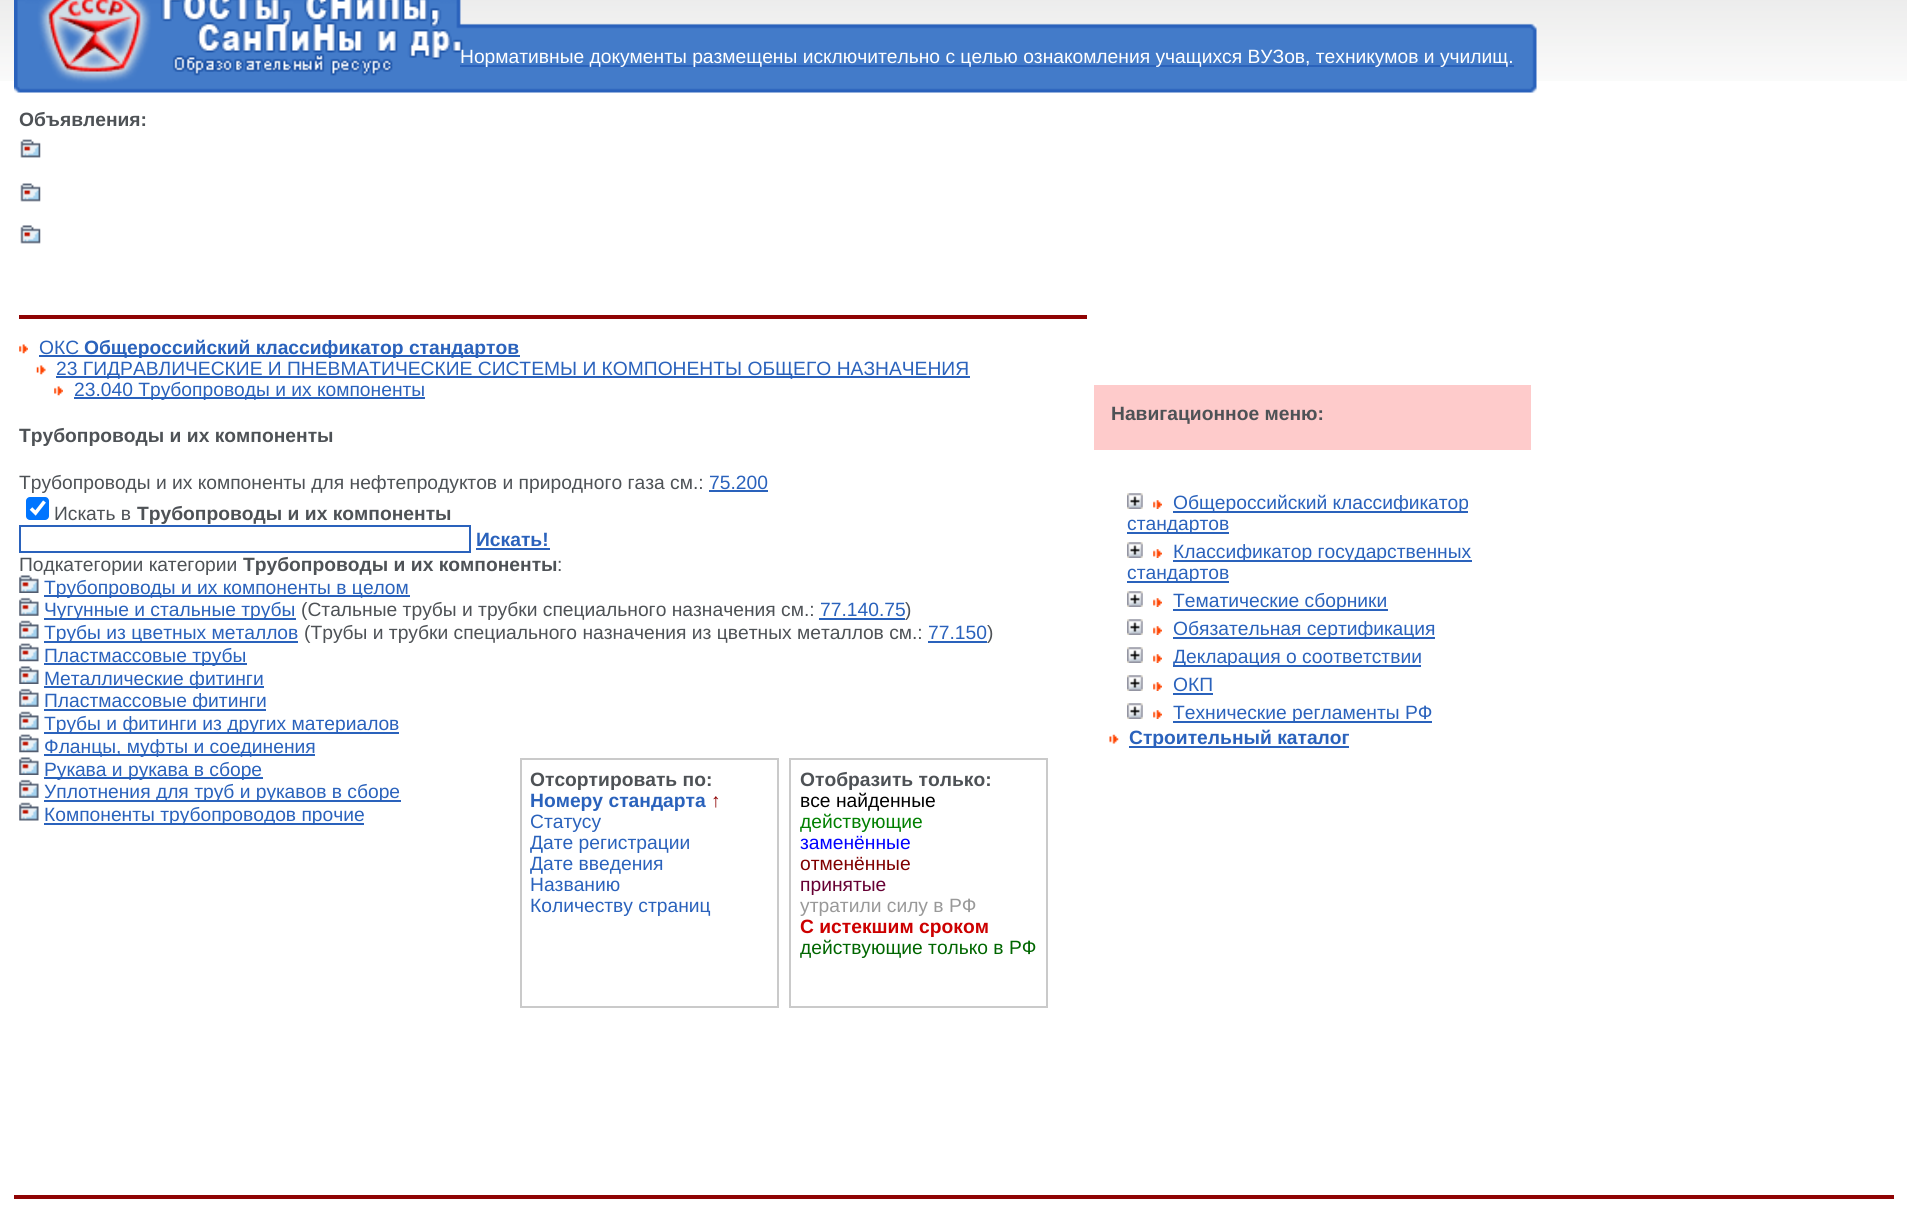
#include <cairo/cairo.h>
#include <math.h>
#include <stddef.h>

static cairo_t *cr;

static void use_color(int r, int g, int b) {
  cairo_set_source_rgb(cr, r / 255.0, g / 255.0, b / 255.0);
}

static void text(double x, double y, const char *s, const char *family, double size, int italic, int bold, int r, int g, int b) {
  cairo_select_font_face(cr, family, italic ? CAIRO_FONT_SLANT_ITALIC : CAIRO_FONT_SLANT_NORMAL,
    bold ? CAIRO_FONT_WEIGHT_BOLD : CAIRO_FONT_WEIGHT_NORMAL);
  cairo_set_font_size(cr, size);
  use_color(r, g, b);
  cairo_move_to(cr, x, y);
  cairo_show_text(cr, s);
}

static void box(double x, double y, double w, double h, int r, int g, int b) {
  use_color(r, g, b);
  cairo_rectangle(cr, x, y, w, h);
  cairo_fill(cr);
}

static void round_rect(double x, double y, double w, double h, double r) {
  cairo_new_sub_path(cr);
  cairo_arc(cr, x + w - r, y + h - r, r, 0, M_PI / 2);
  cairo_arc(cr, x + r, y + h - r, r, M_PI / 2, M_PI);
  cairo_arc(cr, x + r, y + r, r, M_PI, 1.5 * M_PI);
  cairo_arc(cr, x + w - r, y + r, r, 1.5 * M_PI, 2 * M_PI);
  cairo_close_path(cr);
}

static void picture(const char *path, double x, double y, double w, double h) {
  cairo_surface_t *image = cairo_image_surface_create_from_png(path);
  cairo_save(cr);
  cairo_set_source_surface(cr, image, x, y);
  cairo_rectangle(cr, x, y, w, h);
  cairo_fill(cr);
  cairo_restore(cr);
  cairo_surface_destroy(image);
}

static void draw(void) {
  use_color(255, 255, 255);
  cairo_paint(cr);
  picture("img_01.png", 0, 0, 1907, 81);
  picture("img_02.png", 14, 0, 1523, 93);
  box(460, 65, 1054, 2, 42, 98, 188);
  picture("img_03.png", 20, 139, 21, 105);
  box(19, 315, 1068, 4, 143, 3, 3);
  picture("img_04.png", 19, 344, 9, 10);
  box(39, 355, 481, 2, 42, 98, 188);
  picture("img_05.png", 36, 365, 10, 10);
  box(56, 376, 914, 2, 42, 98, 188);
  picture("img_04.png", 54, 386, 9, 10);
  box(74, 397, 351, 2, 42, 98, 188);
  box(709, 490, 59, 2, 42, 98, 188);
  use_color(0, 117, 255);
  round_rect(26, 497, 23, 23, 4);
  cairo_fill(cr);
  cairo_new_path(cr);
  cairo_move_to(cr, 31, 508.5);
  cairo_line_to(cr, 35.5, 513);
  cairo_line_to(cr, 44.5, 501.5);
  use_color(255, 255, 255);
  cairo_set_line_width(cr, 3.6);
  cairo_stroke(cr);
  cairo_rectangle(cr, 20, 526, 450, 26);
  use_color(42, 98, 188);
  cairo_set_line_width(cr, 2);
  cairo_stroke(cr);
  box(476, 548, 74, 2, 42, 98, 188);
  picture("img_06.png", 19, 575, 20, 18);
  box(44, 595, 366, 2, 42, 98, 188);
  picture("img_07.png", 19, 597, 20, 19);
  box(44, 618, 252, 2, 42, 98, 188);
  box(819, 618, 86, 2, 42, 98, 188);
  picture("img_08.png", 19, 620, 20, 19);
  box(44, 641, 254, 2, 42, 98, 188);
  box(928, 641, 59, 2, 42, 98, 188);
  picture("img_09.png", 19, 643, 20, 19);
  box(44, 663, 203, 2, 42, 98, 188);
  picture("img_06.png", 19, 666, 20, 18);
  box(44, 686, 220, 2, 42, 98, 188);
  picture("img_07.png", 19, 688, 20, 19);
  box(44, 709, 222, 2, 42, 98, 188);
  picture("img_08.png", 19, 711, 20, 19);
  box(44, 732, 355, 2, 42, 98, 188);
  picture("img_09.png", 19, 734, 20, 19);
  box(44, 754, 271, 2, 42, 98, 188);
  picture("img_06.png", 19, 757, 20, 18);
  box(44, 777, 219, 2, 42, 98, 188);
  cairo_rectangle(cr, 521, 759, 257, 248);
  use_color(202, 202, 202);
  cairo_stroke(cr);
  cairo_rectangle(cr, 790, 759, 257, 248);
  cairo_stroke(cr);
  picture("img_07.png", 19, 779, 20, 19);
  box(44, 800, 357, 2, 42, 98, 188);
  picture("img_08.png", 19, 802, 20, 19);
  box(44, 823, 320, 2, 42, 98, 188);
  box(1094, 385, 437, 65, 254, 203, 203);
  picture("img_10.png", 1127, 493, 16, 16);
  picture("img_11.png", 1153, 500, 9, 9);
  box(1173, 511, 295, 2, 42, 98, 188);
  box(1127, 532, 102, 2, 42, 98, 188);
  picture("img_10.png", 1127, 542, 16, 16);
  picture("img_11.png", 1153, 549, 9, 9);
  box(1173, 560, 299, 2, 42, 98, 188);
  box(1127, 581, 102, 2, 42, 98, 188);
  picture("img_10.png", 1127, 591, 16, 16);
  picture("img_11.png", 1153, 598, 9, 9);
  box(1173, 609, 215, 2, 42, 98, 188);
  picture("img_10.png", 1127, 619, 16, 16);
  picture("img_11.png", 1153, 626, 9, 9);
  box(1173, 637, 262, 2, 42, 98, 188);
  picture("img_10.png", 1127, 647, 16, 16);
  picture("img_11.png", 1153, 654, 9, 9);
  box(1173, 665, 248, 2, 42, 98, 188);
  picture("img_10.png", 1127, 675, 16, 16);
  picture("img_11.png", 1153, 682, 9, 9);
  box(1173, 693, 40, 2, 42, 98, 188);
  picture("img_10.png", 1127, 703, 16, 16);
  picture("img_11.png", 1153, 710, 9, 9);
  box(1173, 721, 259, 2, 42, 98, 188);
  picture("img_12.png", 1109, 734, 10, 10);
  box(1129, 746, 220, 2, 42, 98, 188);
  box(14, 1195, 1880, 4, 143, 3, 3);
  text(460, 63, "Нормативные документы размещены исключительно с целью ознакомления учащихся ВУЗов, техникумов и училищ.", "Liberation Sans", 19.25, 0, 0, 255, 255, 255);
  text(19, 126, "Объявления:", "Liberation Sans", 19.25, 0, 1, 78, 82, 86);
  text(39, 354, "ОКС", "Liberation Sans", 19.25, 0, 0, 42, 98, 188);
  text(84, 354, "Общероссийский классификатор стандартов", "Liberation Sans", 19.25, 0, 1, 42, 98, 188);
  text(56, 375, "23 ГИДРАВЛИЧЕСКИЕ И ПНЕВМАТИЧЕСКИЕ СИСТЕМЫ И КОМПОНЕНТЫ ОБЩЕГО НАЗНАЧЕНИЯ", "Liberation Sans", 19.25, 0, 0, 42, 98, 188);
  text(74, 396, "23.040 Трубопроводы и их компоненты", "Liberation Sans", 19.25, 0, 0, 42, 98, 188);
  text(19, 442, "Трубопроводы и их компоненты", "Liberation Sans", 19.25, 0, 1, 78, 82, 86);
  text(19, 489, "Трубопроводы и их компоненты для нефтепродуктов и природного газа см.:", "Liberation Sans", 19.25, 0, 0, 78, 82, 86);
  text(709, 489, "75.200", "Liberation Sans", 19.25, 0, 0, 42, 98, 188);
  text(54, 520, "Искать в", "Liberation Sans", 19.25, 0, 0, 78, 82, 86);
  text(137, 520, "Трубопроводы и их компоненты", "Liberation Sans", 19.25, 0, 1, 78, 82, 86);
  text(476, 546, "Искать!", "Liberation Sans", 19.25, 0, 1, 42, 98, 188);
  text(19, 571, "Подкатегории категории", "Liberation Sans", 19.25, 0, 0, 78, 82, 86);
  text(243, 571, "Трубопроводы и их компоненты", "Liberation Sans", 19.25, 0, 1, 78, 82, 86);
  text(557, 571, ":", "Liberation Sans", 19.25, 0, 0, 78, 82, 86);
  text(44, 594, "Трубопроводы и их компоненты в целом", "Liberation Sans", 19.25, 0, 0, 42, 98, 188);
  text(44, 616, "Чугунные и стальные трубы", "Liberation Sans", 19.25, 0, 0, 42, 98, 188);
  text(301, 616, "(Стальные трубы и трубки специального назначения см.:", "Liberation Sans", 19.25, 0, 0, 78, 82, 86);
  text(820, 616, "77.140.75", "Liberation Sans", 19.25, 0, 0, 42, 98, 188);
  text(905, 616, ")", "Liberation Sans", 19.25, 0, 0, 78, 82, 86);
  text(44, 639, "Трубы из цветных металлов", "Liberation Sans", 19.25, 0, 0, 42, 98, 188);
  text(304, 639, "(Трубы и трубки специального назначения из цветных металлов см.:", "Liberation Sans", 19.25, 0, 0, 78, 82, 86);
  text(928, 639, "77.150", "Liberation Sans", 19.25, 0, 0, 42, 98, 188);
  text(987, 639, ")", "Liberation Sans", 19.25, 0, 0, 78, 82, 86);
  text(44, 662, "Пластмассовые трубы", "Liberation Sans", 19.25, 0, 0, 42, 98, 188);
  text(44, 685, "Металлические фитинги", "Liberation Sans", 19.25, 0, 0, 42, 98, 188);
  text(44, 707, "Пластмассовые фитинги", "Liberation Sans", 19.25, 0, 0, 42, 98, 188);
  text(44, 730, "Трубы и фитинги из других материалов", "Liberation Sans", 19.25, 0, 0, 42, 98, 188);
  text(44, 753, "Фланцы, муфты и соединения", "Liberation Sans", 19.25, 0, 0, 42, 98, 188);
  text(44, 776, "Рукава и рукава в сборе", "Liberation Sans", 19.25, 0, 0, 42, 98, 188);
  text(530, 786, "Отсортировать по:", "Liberation Sans", 19.25, 0, 1, 78, 82, 86);
  text(530, 807, "Номеру стандарта", "Liberation Sans", 19.25, 0, 1, 42, 98, 188);
  text(711, 807, "↑", "Liberation Sans", 19.25, 0, 0, 143, 3, 3);
  text(530, 828, "Статусу", "Liberation Sans", 19.25, 0, 0, 42, 98, 188);
  text(530, 849, "Дате регистрации", "Liberation Sans", 19.25, 0, 0, 42, 98, 188);
  text(530, 870, "Дате введения", "Liberation Sans", 19.25, 0, 0, 42, 98, 188);
  text(530, 891, "Названию", "Liberation Sans", 19.25, 0, 0, 42, 98, 188);
  text(530, 912, "Количеству страниц", "Liberation Sans", 19.25, 0, 0, 42, 98, 188);
  text(800, 786, "Отобразить только:", "Liberation Sans", 19.25, 0, 1, 78, 82, 86);
  text(800, 807, "все найденные", "Liberation Sans", 19.25, 0, 0, 0, 0, 0);
  text(800, 828, "действующие", "Liberation Sans", 19.25, 0, 0, 0, 128, 0);
  text(800, 849, "заменённые", "Liberation Sans", 19.25, 0, 0, 0, 0, 255);
  text(800, 870, "отменённые", "Liberation Sans", 19.25, 0, 0, 128, 0, 0);
  text(800, 891, "принятые", "Liberation Sans", 19.25, 0, 0, 102, 0, 51);
  text(800, 912, "утратили силу в РФ", "Liberation Sans", 19.25, 0, 0, 153, 153, 153);
  text(800, 933, "С истекшим сроком", "Liberation Sans", 19.25, 0, 1, 204, 0, 0);
  text(800, 954, "действующие только в РФ", "Liberation Sans", 19.25, 0, 0, 0, 102, 0);
  text(44, 798, "Уплотнения для труб и рукавов в сборе", "Liberation Sans", 19.25, 0, 0, 42, 98, 188);
  text(44, 821, "Компоненты трубопроводов прочие", "Liberation Sans", 19.25, 0, 0, 42, 98, 188);
  text(1111, 420, "Навигационное меню:", "Liberation Sans", 19.25, 0, 1, 78, 82, 86);
  text(1173, 509, "Общероссийский классификатор", "Liberation Sans", 19.25, 0, 0, 42, 98, 188);
  text(1127, 530, "стандартов", "Liberation Sans", 19.25, 0, 0, 42, 98, 188);
  text(1173, 558, "Классификатор государственных", "Liberation Sans", 19.25, 0, 0, 42, 98, 188);
  text(1127, 579, "стандартов", "Liberation Sans", 19.25, 0, 0, 42, 98, 188);
  text(1173, 607, "Тематические сборники", "Liberation Sans", 19.25, 0, 0, 42, 98, 188);
  text(1173, 635, "Обязательная сертификация", "Liberation Sans", 19.25, 0, 0, 42, 98, 188);
  text(1173, 663, "Декларация о соответствии", "Liberation Sans", 19.25, 0, 0, 42, 98, 188);
  text(1173, 691, "ОКП", "Liberation Sans", 19.25, 0, 0, 42, 98, 188);
  text(1173, 719, "Технические регламенты РФ", "Liberation Sans", 19.25, 0, 0, 42, 98, 188);
  text(1129, 744, "Строительный каталог", "Liberation Sans", 19.25, 0, 1, 42, 98, 188);
}

int main(void) {
  cairo_surface_t *surface = cairo_image_surface_create(CAIRO_FORMAT_RGB24, 1907, 1222);
  cr = cairo_create(surface);
  cairo_font_options_t *options = cairo_font_options_create();
  cairo_font_options_set_hint_metrics(options, CAIRO_HINT_METRICS_OFF);
  cairo_font_options_set_hint_style(options, CAIRO_HINT_STYLE_NONE);
  cairo_set_font_options(cr, options);
  cairo_set_miter_limit(cr, 4);
  draw();
  cairo_surface_write_to_png(surface, "out.png");
  cairo_font_options_destroy(options);
  cairo_destroy(cr);
  cairo_surface_destroy(surface);
  return 0;
}
